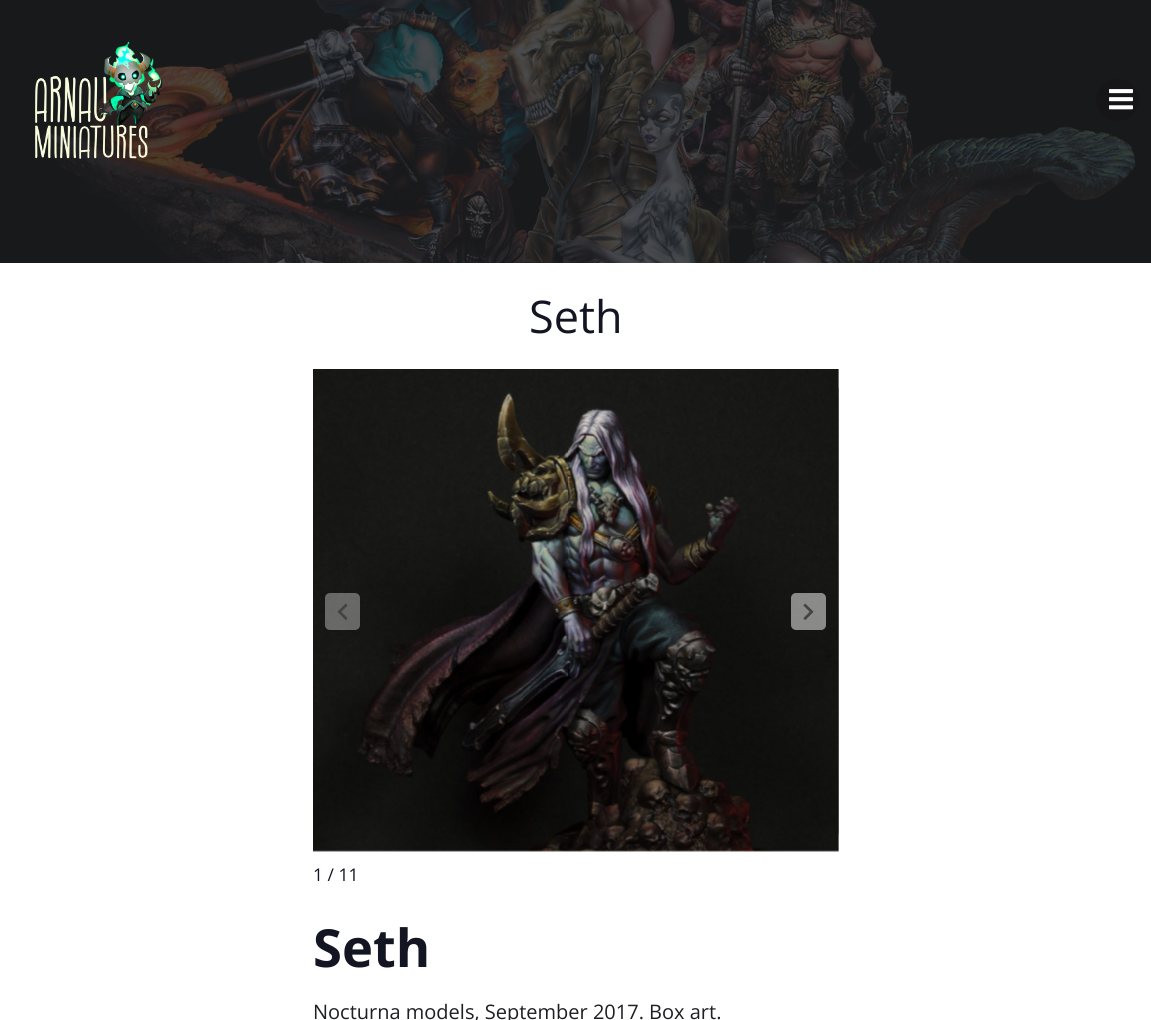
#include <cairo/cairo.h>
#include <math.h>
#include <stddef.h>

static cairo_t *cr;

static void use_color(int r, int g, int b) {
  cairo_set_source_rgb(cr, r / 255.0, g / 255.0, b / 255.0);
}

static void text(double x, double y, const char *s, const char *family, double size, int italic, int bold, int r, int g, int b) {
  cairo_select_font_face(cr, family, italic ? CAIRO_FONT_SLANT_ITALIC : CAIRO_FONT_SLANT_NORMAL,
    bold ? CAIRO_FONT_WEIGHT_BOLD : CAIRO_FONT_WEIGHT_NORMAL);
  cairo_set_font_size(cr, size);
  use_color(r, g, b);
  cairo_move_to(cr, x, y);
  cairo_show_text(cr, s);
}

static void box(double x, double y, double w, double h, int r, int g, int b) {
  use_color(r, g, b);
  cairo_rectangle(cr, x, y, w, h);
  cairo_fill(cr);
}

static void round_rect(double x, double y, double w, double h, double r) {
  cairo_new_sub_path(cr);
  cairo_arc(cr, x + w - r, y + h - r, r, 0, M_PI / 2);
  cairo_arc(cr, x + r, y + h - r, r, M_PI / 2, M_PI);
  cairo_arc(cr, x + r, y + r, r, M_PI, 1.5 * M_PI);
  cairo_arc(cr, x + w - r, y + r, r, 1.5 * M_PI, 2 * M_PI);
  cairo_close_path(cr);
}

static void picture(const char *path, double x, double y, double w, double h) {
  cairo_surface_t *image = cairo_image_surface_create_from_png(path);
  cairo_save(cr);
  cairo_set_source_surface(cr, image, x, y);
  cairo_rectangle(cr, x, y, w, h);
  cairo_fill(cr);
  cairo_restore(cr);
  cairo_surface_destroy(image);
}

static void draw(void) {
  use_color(24, 25, 27);
  cairo_paint(cr);
  picture("img_01.png", 41, 0, 1095, 263);
  picture("img_02.png", 35, 41, 128, 118);
  use_color(22, 22, 24);
  round_rect(1096, 79, 43, 42, 21);
  cairo_fill(cr);
  picture("img_03.png", 1109, 89, 24, 21);
  box(0, 263, 1151, 757, 255, 255, 255);
  picture("img_04.png", 313, 369, 526, 483);
  picture("img_05.png", 838, 388, 1, 447);
  cairo_set_source_rgba(cr, 1, 1, 1, 0.35);
  round_rect(325, 593, 35, 37, 5);
  cairo_fill(cr);
  picture("img_06.png", 337, 603, 11, 17);
  cairo_set_source_rgba(cr, 1, 1, 1, 0.5);
  round_rect(791, 593, 35, 37, 5);
  cairo_fill(cr);
  picture("img_07.png", 803, 603, 11, 17);
  text(529, 333, "Seth", "Open Sans", 45, 0, 0, 19, 22, 34);
  text(313, 881, "1 / 11", "Open Sans", 17.5, 0, 0, 19, 22, 34);
  text(313, 967, "Seth", "Open Sans", 52.5, 0, 1, 19, 22, 34);
  text(313, 1019, "Nocturna models, September 2017. Box art.", "Open Sans", 20, 0, 0, 30, 31, 34);
}

int main(void) {
  cairo_surface_t *surface = cairo_image_surface_create(CAIRO_FORMAT_RGB24, 1151, 1020);
  cr = cairo_create(surface);
  cairo_font_options_t *options = cairo_font_options_create();
  cairo_font_options_set_hint_metrics(options, CAIRO_HINT_METRICS_OFF);
  cairo_font_options_set_hint_style(options, CAIRO_HINT_STYLE_NONE);
  cairo_set_font_options(cr, options);
  cairo_set_miter_limit(cr, 4);
  draw();
  cairo_surface_write_to_png(surface, "out.png");
  cairo_font_options_destroy(options);
  cairo_destroy(cr);
  cairo_surface_destroy(surface);
  return 0;
}
